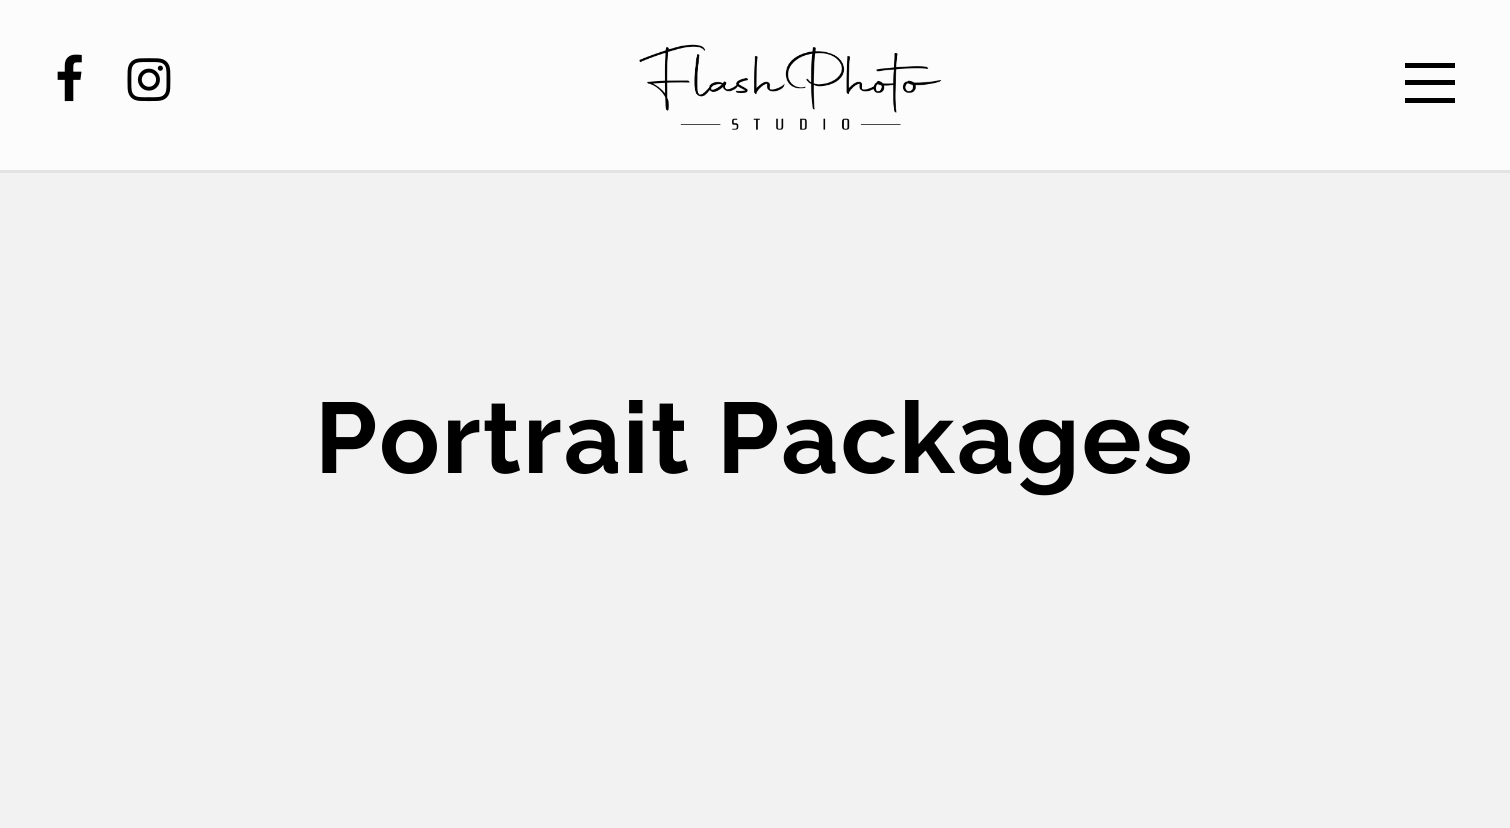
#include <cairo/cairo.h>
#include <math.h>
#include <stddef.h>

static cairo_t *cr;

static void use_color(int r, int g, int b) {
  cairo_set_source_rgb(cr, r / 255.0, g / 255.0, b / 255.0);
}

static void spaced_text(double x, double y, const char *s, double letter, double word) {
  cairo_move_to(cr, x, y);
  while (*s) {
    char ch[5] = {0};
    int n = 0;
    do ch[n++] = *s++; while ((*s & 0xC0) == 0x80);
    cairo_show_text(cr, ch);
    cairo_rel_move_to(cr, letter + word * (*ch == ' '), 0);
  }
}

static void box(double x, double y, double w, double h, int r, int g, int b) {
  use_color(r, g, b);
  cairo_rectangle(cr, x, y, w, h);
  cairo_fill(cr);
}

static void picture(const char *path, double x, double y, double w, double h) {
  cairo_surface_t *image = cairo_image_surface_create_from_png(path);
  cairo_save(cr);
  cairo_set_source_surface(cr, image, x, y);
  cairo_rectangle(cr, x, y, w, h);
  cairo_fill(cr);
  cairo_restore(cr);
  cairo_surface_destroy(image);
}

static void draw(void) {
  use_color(242, 242, 242);
  cairo_paint(cr);
  box(0, 0, 1510, 170, 252, 252, 252);
  box(0, 170, 1510, 3, 227, 227, 227);
  picture("img_01.png", 57, 54, 25, 48);
  picture("img_02.png", 127, 58, 44, 44);
  picture("img_03.png", 639, 44, 303, 86);
  box(1405, 98, 50, 5, 0, 0, 0);
  box(1405, 63, 50, 5, 0, 0, 0);
  box(1405, 80, 50, 5, 0, 0, 0);
  cairo_select_font_face(cr, "Raleway Thin", CAIRO_FONT_SLANT_NORMAL, CAIRO_FONT_WEIGHT_NORMAL);
  cairo_set_font_size(cr, 100);
  spaced_text(315, 473, "Portrait Packages", 2, 0);
}

int main(void) {
  cairo_surface_t *surface = cairo_image_surface_create(CAIRO_FORMAT_RGB24, 1510, 828);
  cr = cairo_create(surface);
  cairo_font_options_t *options = cairo_font_options_create();
  cairo_font_options_set_hint_metrics(options, CAIRO_HINT_METRICS_OFF);
  cairo_font_options_set_hint_style(options, CAIRO_HINT_STYLE_NONE);
  cairo_set_font_options(cr, options);
  cairo_set_miter_limit(cr, 4);
  draw();
  cairo_surface_write_to_png(surface, "out.png");
  cairo_font_options_destroy(options);
  cairo_destroy(cr);
  cairo_surface_destroy(surface);
  return 0;
}
